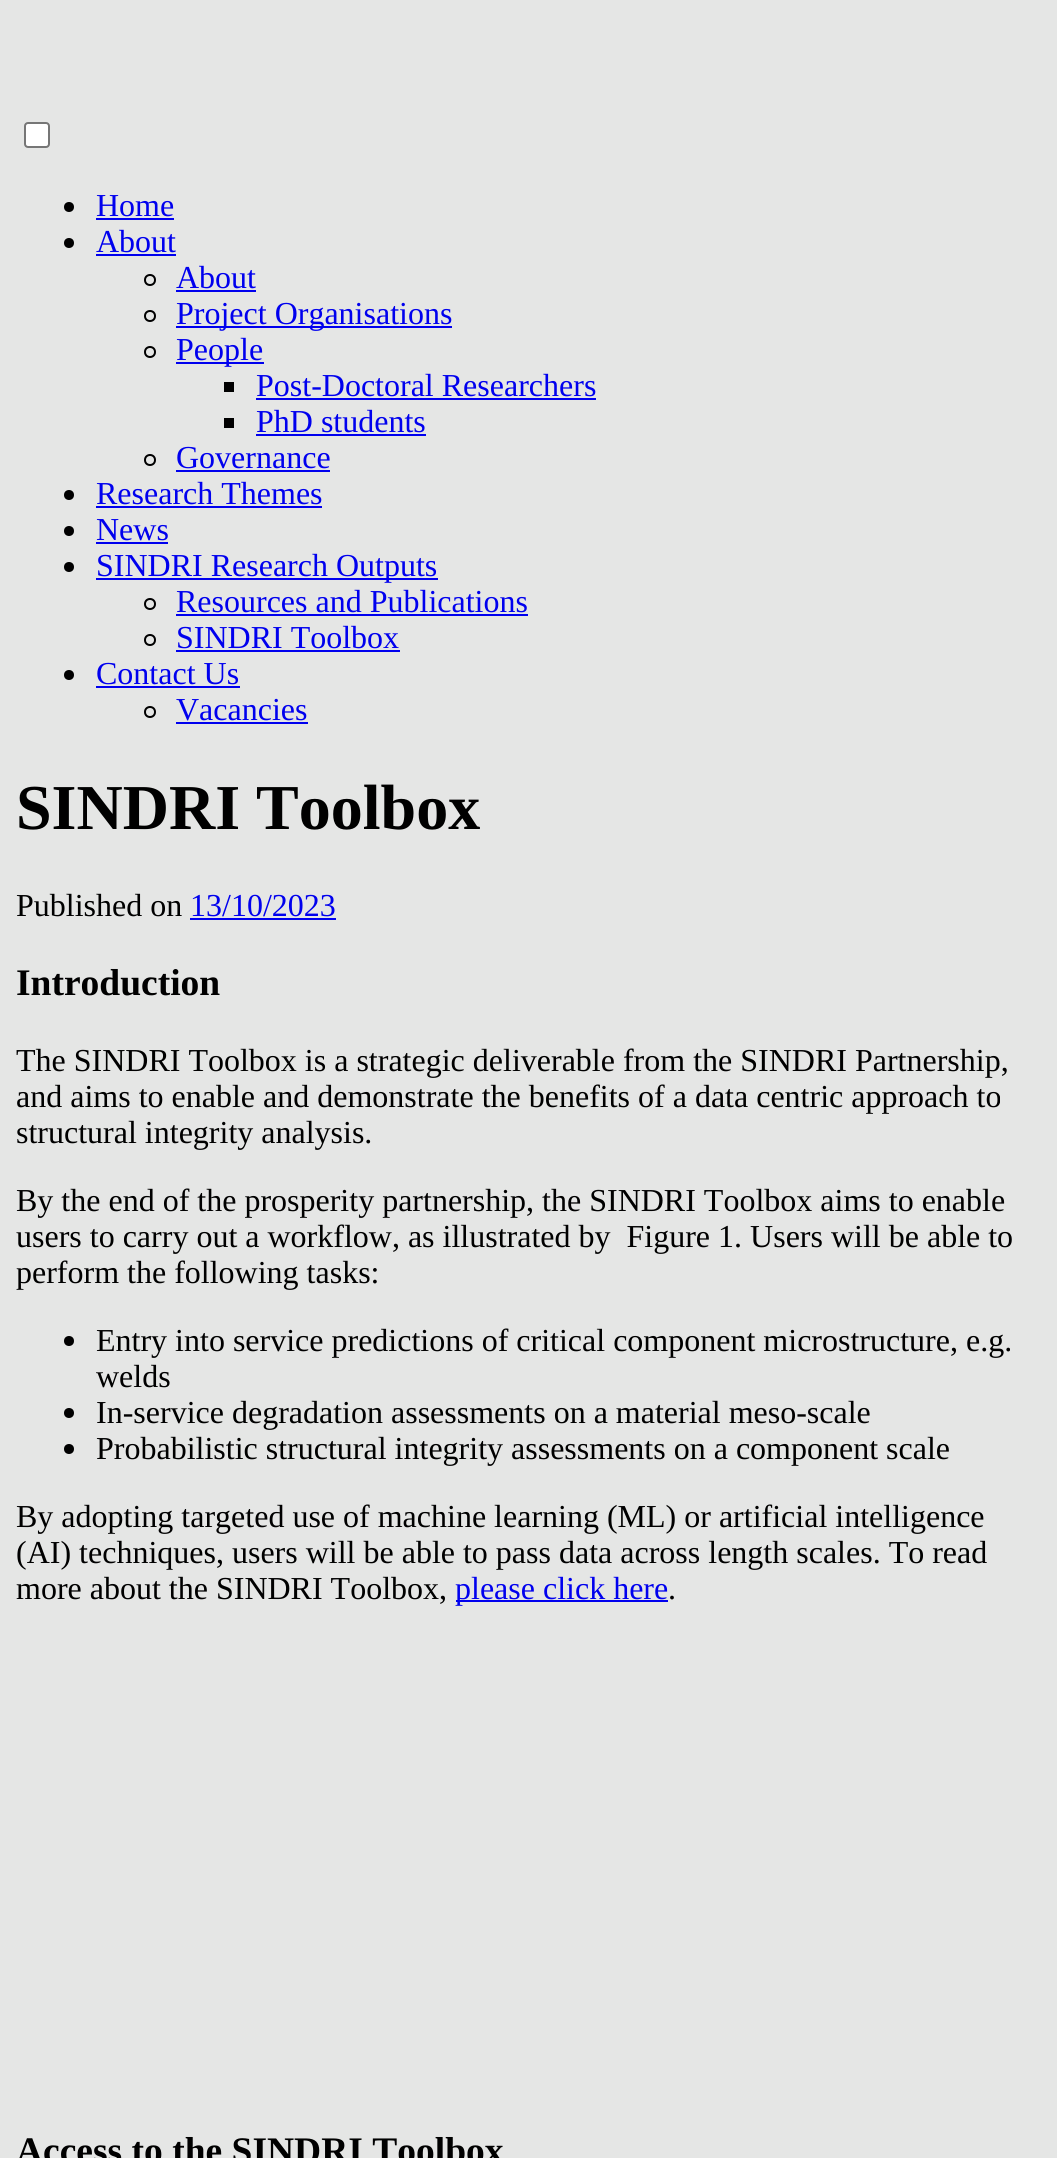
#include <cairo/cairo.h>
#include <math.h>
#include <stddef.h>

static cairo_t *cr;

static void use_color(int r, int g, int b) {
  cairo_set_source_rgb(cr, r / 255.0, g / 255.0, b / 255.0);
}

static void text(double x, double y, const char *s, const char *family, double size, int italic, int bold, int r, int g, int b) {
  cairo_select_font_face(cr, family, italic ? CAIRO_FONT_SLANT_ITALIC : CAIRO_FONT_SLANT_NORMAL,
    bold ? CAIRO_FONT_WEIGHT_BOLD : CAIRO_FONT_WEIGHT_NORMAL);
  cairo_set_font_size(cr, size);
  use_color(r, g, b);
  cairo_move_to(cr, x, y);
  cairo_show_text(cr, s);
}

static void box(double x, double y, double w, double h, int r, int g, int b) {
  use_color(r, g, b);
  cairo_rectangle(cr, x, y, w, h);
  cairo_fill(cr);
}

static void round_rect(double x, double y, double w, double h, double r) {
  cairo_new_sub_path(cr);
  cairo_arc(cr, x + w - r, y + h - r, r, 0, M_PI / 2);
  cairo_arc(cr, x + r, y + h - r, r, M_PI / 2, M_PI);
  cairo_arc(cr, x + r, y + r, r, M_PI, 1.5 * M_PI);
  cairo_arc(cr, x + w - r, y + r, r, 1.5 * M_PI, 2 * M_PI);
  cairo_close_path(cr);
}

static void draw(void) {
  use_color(229, 230, 229);
  cairo_paint(cr);
  use_color(255, 255, 255);
  round_rect(25, 123, 24, 24, 3);
  cairo_fill_preserve(cr);
  use_color(118, 118, 118);
  cairo_stroke(cr);
  use_color(0, 0, 0);
  cairo_arc(cr, 69, 207, 5, 0, 2 * M_PI);
  cairo_fill(cr);
  box(96, 218, 78, 2, 0, 0, 238);
  use_color(0, 0, 0);
  cairo_arc(cr, 69, 243, 5, 0, 2 * M_PI);
  cairo_fill(cr);
  box(96, 254, 80, 2, 0, 0, 238);
  cairo_arc(cr, 150, 280, 5, 0, 2 * M_PI);
  use_color(0, 0, 0);
  cairo_stroke(cr);
  box(176, 290, 80, 2, 0, 0, 238);
  cairo_arc(cr, 150, 316, 5, 0, 2 * M_PI);
  use_color(0, 0, 0);
  cairo_stroke(cr);
  box(176, 326, 276, 2, 0, 0, 238);
  cairo_arc(cr, 150, 352, 5, 0, 2 * M_PI);
  use_color(0, 0, 0);
  cairo_stroke(cr);
  box(176, 362, 88, 2, 0, 0, 238);
  box(224, 382, 10, 10, 0, 0, 0);
  box(256, 398, 340, 2, 0, 0, 238);
  box(224, 418, 10, 10, 0, 0, 0);
  box(256, 434, 170, 2, 0, 0, 238);
  cairo_arc(cr, 150, 460, 5, 0, 2 * M_PI);
  use_color(0, 0, 0);
  cairo_stroke(cr);
  box(176, 470, 154, 2, 0, 0, 238);
  use_color(0, 0, 0);
  cairo_arc(cr, 69, 495, 5, 0, 2 * M_PI);
  cairo_fill(cr);
  box(96, 506, 226, 2, 0, 0, 238);
  use_color(0, 0, 0);
  cairo_arc(cr, 69, 531, 5, 0, 2 * M_PI);
  cairo_fill(cr);
  box(96, 542, 72, 2, 0, 0, 238);
  use_color(0, 0, 0);
  cairo_arc(cr, 69, 567, 5, 0, 2 * M_PI);
  cairo_fill(cr);
  box(96, 578, 342, 2, 0, 0, 238);
  cairo_arc(cr, 150, 604, 5, 0, 2 * M_PI);
  use_color(0, 0, 0);
  cairo_stroke(cr);
  box(176, 614, 352, 2, 0, 0, 238);
  cairo_arc(cr, 150, 640, 5, 0, 2 * M_PI);
  use_color(0, 0, 0);
  cairo_stroke(cr);
  box(176, 650, 224, 2, 0, 0, 238);
  use_color(0, 0, 0);
  cairo_arc(cr, 69, 675, 5, 0, 2 * M_PI);
  cairo_fill(cr);
  box(96, 686, 144, 2, 0, 0, 238);
  cairo_arc(cr, 150, 712, 5, 0, 2 * M_PI);
  use_color(0, 0, 0);
  cairo_stroke(cr);
  box(176, 722, 132, 2, 0, 0, 238);
  box(190, 918, 146, 2, 0, 0, 238);
  use_color(0, 0, 0);
  cairo_arc(cr, 69, 1341, 5, 0, 2 * M_PI);
  cairo_fill(cr);
  cairo_arc(cr, 69, 1413, 5, 0, 2 * M_PI);
  cairo_fill(cr);
  cairo_arc(cr, 69, 1449, 5, 0, 2 * M_PI);
  cairo_fill(cr);
  box(456, 1600, 212, 2, 0, 0, 238);
  text(96, 216, "Home", "Liberation Serif", 32, 0, 0, 0, 0, 238);
  text(96, 252, "About", "Liberation Serif", 32, 0, 0, 0, 0, 238);
  text(176, 288, "About", "Liberation Serif", 32, 0, 0, 0, 0, 238);
  text(176, 324, "Project Organisations", "Liberation Serif", 32, 0, 0, 0, 0, 238);
  text(176, 360, "People", "Liberation Serif", 32, 0, 0, 0, 0, 238);
  text(256, 396, "Post-Doctoral Researchers", "Liberation Serif", 32, 0, 0, 0, 0, 238);
  text(256, 432, "PhD students", "Liberation Serif", 32, 0, 0, 0, 0, 238);
  text(176, 468, "Governance", "Liberation Serif", 32, 0, 0, 0, 0, 238);
  text(96, 504, "Research Themes", "Liberation Serif", 32, 0, 0, 0, 0, 238);
  text(96, 540, "News", "Liberation Serif", 32, 0, 0, 0, 0, 238);
  text(96, 576, "SINDRI Research Outputs", "Liberation Serif", 32, 0, 0, 0, 0, 238);
  text(176, 612, "Resources and Publications", "Liberation Serif", 32, 0, 0, 0, 0, 238);
  text(176, 648, "SINDRI Toolbox", "Liberation Serif", 32, 0, 0, 0, 0, 238);
  text(96, 684, "Contact Us", "Liberation Serif", 32, 0, 0, 0, 0, 238);
  text(176, 720, "Vacancies", "Liberation Serif", 32, 0, 0, 0, 0, 238);
  text(16, 829, "SINDRI Toolbox", "Liberation Serif", 64, 0, 1, 0, 0, 0);
  text(16, 916, "Published on", "Liberation Serif", 32, 0, 0, 0, 0, 0);
  text(190, 916, "13/10/2023", "Liberation Serif", 32, 0, 0, 0, 0, 238);
  text(16, 995, "Introduction", "Liberation Serif", 37.5, 0, 1, 0, 0, 0);
  text(16, 1071, "The SINDRI Toolbox is a strategic deliverable from the SINDRI Partnership,", "Liberation Serif", 32, 0, 0, 0, 0, 0);
  text(16, 1107, "and aims to enable and demonstrate the benefits of a data centric approach to", "Liberation Serif", 32, 0, 0, 0, 0, 0);
  text(16, 1143, "structural integrity analysis.", "Liberation Serif", 32, 0, 0, 0, 0, 0);
  text(16, 1211, "By the end of the prosperity partnership, the SINDRI Toolbox aims to enable", "Liberation Serif", 32, 0, 0, 0, 0, 0);
  text(16, 1247, "users to carry out a workflow, as illustrated by  Figure 1. Users will be able to", "Liberation Serif", 32, 0, 0, 0, 0, 0);
  text(16, 1283, "perform the following tasks:", "Liberation Serif", 32, 0, 0, 0, 0, 0);
  text(96, 1351, "Entry into service predictions of critical component microstructure, e.g.", "Liberation Serif", 32, 0, 0, 0, 0, 0);
  text(96, 1387, "welds", "Liberation Serif", 32, 0, 0, 0, 0, 0);
  text(96, 1423, "In-service degradation assessments on a material meso-scale", "Liberation Serif", 32, 0, 0, 0, 0, 0);
  text(96, 1459, "Probabilistic structural integrity assessments on a component scale", "Liberation Serif", 32, 0, 0, 0, 0, 0);
  text(16, 1527, "By adopting targeted use of machine learning (ML) or artificial intelligence", "Liberation Serif", 32, 0, 0, 0, 0, 0);
  text(16, 1563, "(AI) techniques, users will be able to pass data across length scales. To read", "Liberation Serif", 32, 0, 0, 0, 0, 0);
  text(16, 1599, "more about the SINDRI Toolbox,", "Liberation Serif", 32, 0, 0, 0, 0, 0);
  text(455, 1599, "please click here", "Liberation Serif", 32, 0, 0, 0, 0, 238);
  text(668, 1599, ".", "Liberation Serif", 32, 0, 0, 0, 0, 0);
  text(16, 2163, "Access to the SINDRI Toolbox", "Liberation Serif", 37.5, 0, 1, 0, 0, 0);
}

int main(void) {
  cairo_surface_t *surface = cairo_image_surface_create(CAIRO_FORMAT_RGB24, 1057, 2158);
  cr = cairo_create(surface);
  cairo_font_options_t *options = cairo_font_options_create();
  cairo_font_options_set_hint_metrics(options, CAIRO_HINT_METRICS_OFF);
  cairo_font_options_set_hint_style(options, CAIRO_HINT_STYLE_NONE);
  cairo_set_font_options(cr, options);
  cairo_set_miter_limit(cr, 4);
  draw();
  cairo_surface_write_to_png(surface, "out.png");
  cairo_font_options_destroy(options);
  cairo_destroy(cr);
  cairo_surface_destroy(surface);
  return 0;
}
